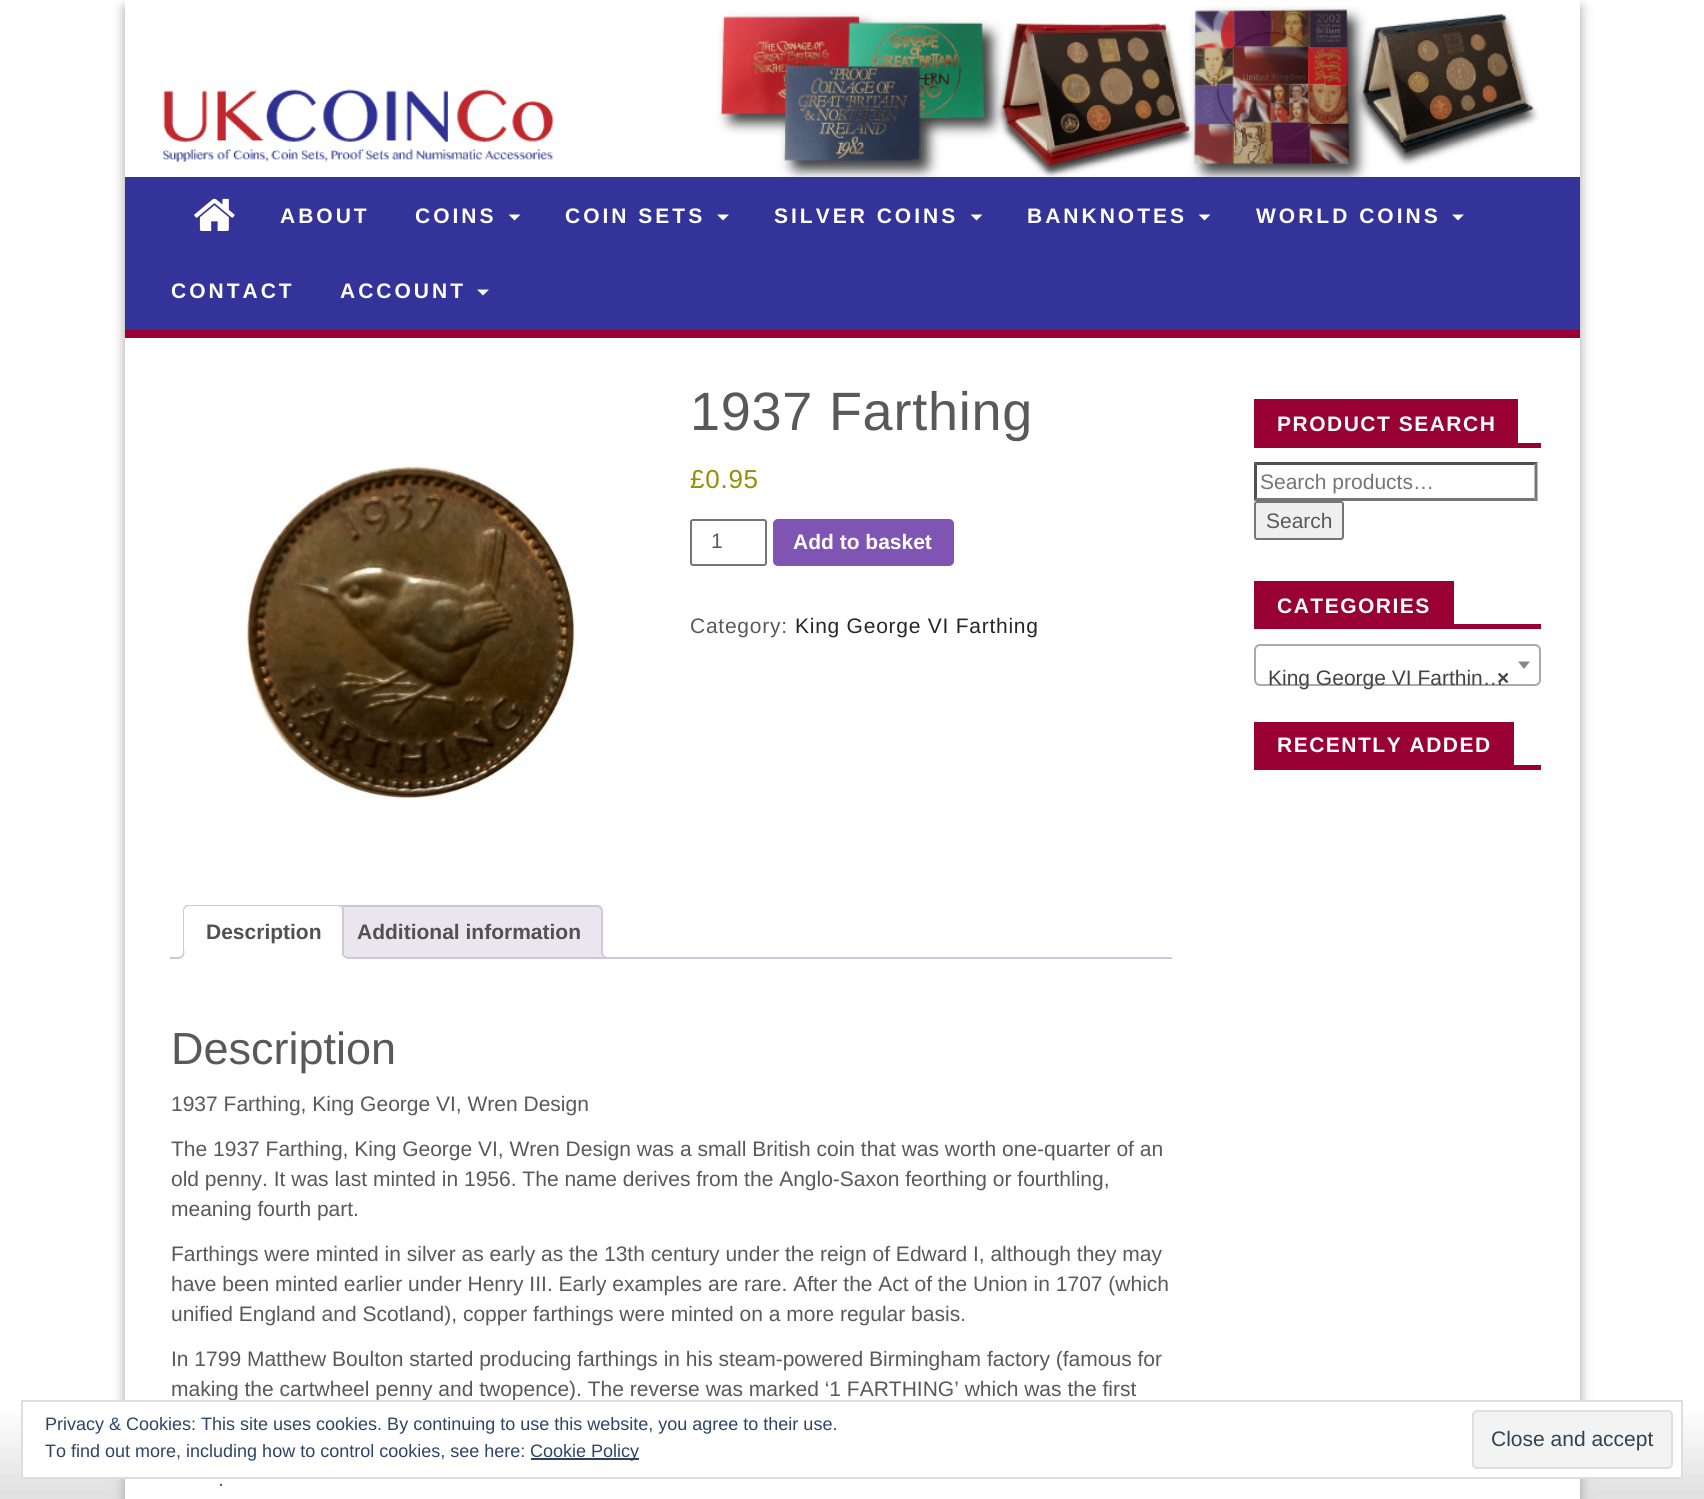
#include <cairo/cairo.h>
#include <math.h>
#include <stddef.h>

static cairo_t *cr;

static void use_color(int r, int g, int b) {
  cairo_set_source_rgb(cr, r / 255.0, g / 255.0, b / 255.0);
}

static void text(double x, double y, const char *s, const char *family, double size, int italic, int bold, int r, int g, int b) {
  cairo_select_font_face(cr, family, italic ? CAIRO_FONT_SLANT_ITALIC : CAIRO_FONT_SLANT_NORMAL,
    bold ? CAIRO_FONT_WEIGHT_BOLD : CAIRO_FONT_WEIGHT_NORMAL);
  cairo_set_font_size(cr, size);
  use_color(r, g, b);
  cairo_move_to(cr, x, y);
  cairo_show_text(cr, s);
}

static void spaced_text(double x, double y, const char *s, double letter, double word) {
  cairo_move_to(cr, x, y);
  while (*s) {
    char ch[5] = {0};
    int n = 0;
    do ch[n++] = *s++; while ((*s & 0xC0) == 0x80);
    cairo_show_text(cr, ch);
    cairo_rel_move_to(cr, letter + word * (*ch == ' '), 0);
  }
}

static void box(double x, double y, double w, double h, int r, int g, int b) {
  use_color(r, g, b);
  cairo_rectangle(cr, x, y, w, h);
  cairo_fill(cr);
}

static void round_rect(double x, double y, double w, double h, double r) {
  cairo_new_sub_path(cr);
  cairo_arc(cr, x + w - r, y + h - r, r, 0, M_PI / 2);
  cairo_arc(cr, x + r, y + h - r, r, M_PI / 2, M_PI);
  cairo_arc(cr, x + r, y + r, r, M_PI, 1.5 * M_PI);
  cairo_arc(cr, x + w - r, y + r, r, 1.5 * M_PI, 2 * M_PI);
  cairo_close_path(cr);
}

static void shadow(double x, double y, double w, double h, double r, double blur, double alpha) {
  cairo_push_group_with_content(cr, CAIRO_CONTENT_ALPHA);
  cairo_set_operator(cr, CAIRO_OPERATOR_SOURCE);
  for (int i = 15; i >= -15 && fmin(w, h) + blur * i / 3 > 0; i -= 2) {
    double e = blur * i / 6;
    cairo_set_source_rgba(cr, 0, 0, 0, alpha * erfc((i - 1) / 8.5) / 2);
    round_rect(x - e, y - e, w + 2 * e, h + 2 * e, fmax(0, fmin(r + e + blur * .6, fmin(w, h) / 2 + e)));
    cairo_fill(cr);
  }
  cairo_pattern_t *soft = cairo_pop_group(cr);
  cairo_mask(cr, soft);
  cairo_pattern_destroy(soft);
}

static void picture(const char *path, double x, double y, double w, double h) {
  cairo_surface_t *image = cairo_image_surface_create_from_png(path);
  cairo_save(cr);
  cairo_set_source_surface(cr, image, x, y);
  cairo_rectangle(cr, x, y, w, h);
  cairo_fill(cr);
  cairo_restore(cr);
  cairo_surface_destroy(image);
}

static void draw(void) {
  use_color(178, 178, 178);
  cairo_paint(cr);
  picture("img_01.png", 0, 0, 1704, 1499);
  use_color(161, 161, 161);
  shadow(125, 8, 1455, 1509, 0, 6, 1);
  box(125, 0, 1455, 177, 255, 255, 255);
  picture("img_02.png", 162, 6, 1377, 171);
  box(125, 330, 1455, 8, 153, 0, 51);
  box(125, 177, 1455, 153, 51, 51, 153);
  picture("img_03.png", 194, 198, 41, 33);
  use_color(255, 255, 255);
  cairo_new_path(cr);
  cairo_move_to(cr, 508.5, 214.5);
  cairo_line_to(cr, 520.5, 214.5);
  cairo_line_to(cr, 514.5, 220.5);
  cairo_close_path(cr);
  cairo_fill(cr);
  cairo_new_path(cr);
  cairo_move_to(cr, 717, 214.5);
  cairo_line_to(cr, 729, 214.5);
  cairo_line_to(cr, 723, 220.5);
  cairo_close_path(cr);
  cairo_fill(cr);
  cairo_new_path(cr);
  cairo_move_to(cr, 970.5, 214.5);
  cairo_line_to(cr, 982.5, 214.5);
  cairo_line_to(cr, 976.5, 220.5);
  cairo_close_path(cr);
  cairo_fill(cr);
  cairo_new_path(cr);
  cairo_move_to(cr, 1198.5, 214.5);
  cairo_line_to(cr, 1210.5, 214.5);
  cairo_line_to(cr, 1204.5, 220.5);
  cairo_close_path(cr);
  cairo_fill(cr);
  cairo_new_path(cr);
  cairo_move_to(cr, 1452, 214.5);
  cairo_line_to(cr, 1464, 214.5);
  cairo_line_to(cr, 1458, 220.5);
  cairo_close_path(cr);
  cairo_fill(cr);
  cairo_new_path(cr);
  cairo_move_to(cr, 477, 289.5);
  cairo_line_to(cr, 489, 289.5);
  cairo_line_to(cr, 483, 295.5);
  cairo_close_path(cr);
  cairo_fill(cr);
  box(125, 338, 1455, 1161, 255, 255, 255);
  picture("img_04.png", 246, 460, 333, 342);
  round_rect(691, 520, 75, 45, 2);
  use_color(118, 118, 118);
  cairo_stroke(cr);
  use_color(127, 84, 179);
  round_rect(773, 519, 181, 47, 5);
  cairo_fill(cr);
  use_color(233, 230, 237);
  cairo_new_path(cr);
  cairo_move_to(cr, 341, 906);
  cairo_line_to(cr, 597, 906);
  cairo_curve_to(cr, 600, 906, 602, 908, 602, 911);
  cairo_line_to(cr, 602, 958);
  cairo_line_to(cr, 336, 958);
  cairo_line_to(cr, 336, 911);
  cairo_curve_to(cr, 336, 908, 338, 906, 341, 906);
  cairo_close_path(cr);
  cairo_fill_preserve(cr);
  use_color(207, 200, 216);
  cairo_stroke(cr);
  cairo_save(cr);
  cairo_rectangle(cr, 170, 905, 1002, 54);
  cairo_clip(cr);
  use_color(233, 230, 237);
  cairo_new_path(cr);
  cairo_move_to(cr, 599, 954);
  cairo_curve_to(cr, 599, 959, 600.5, 962, 606, 962);
  cairo_line_to(cr, 606, 958.5);
  cairo_curve_to(cr, 604, 958, 602, 956, 601.5, 954);
  cairo_close_path(cr);
  cairo_fill(cr);
  cairo_restore(cr);
  cairo_set_fill_rule(cr, CAIRO_FILL_RULE_EVEN_ODD);
  cairo_new_path(cr);
  cairo_move_to(cr, 601.5, 951);
  cairo_line_to(cr, 609, 951);
  cairo_line_to(cr, 609, 958.5);
  cairo_curve_to(cr, 605, 958.5, 601.5, 957, 601.5, 952.5);
  cairo_close_path(cr);
  cairo_move_to(cr, 603, 951);
  cairo_line_to(cr, 609, 951);
  cairo_line_to(cr, 609, 957);
  cairo_curve_to(cr, 606, 957, 603, 956, 603, 952.5);
  cairo_close_path(cr);
  cairo_fill(cr);
  box(170, 957, 1002, 2, 207, 200, 216);
  use_color(255, 255, 255);
  cairo_new_path(cr);
  cairo_move_to(cr, 189, 905);
  cairo_line_to(cr, 338, 905);
  cairo_curve_to(cr, 341.5, 905, 344, 907.5, 344, 911);
  cairo_line_to(cr, 344, 959);
  cairo_line_to(cr, 183, 959);
  cairo_line_to(cr, 183, 911);
  cairo_curve_to(cr, 183, 907.5, 185.5, 905, 189, 905);
  cairo_close_path(cr);
  cairo_fill(cr);
  cairo_save(cr);
  cairo_set_fill_rule(cr, CAIRO_FILL_RULE_WINDING);
  cairo_rectangle(cr, 170, 905, 1002, 54);
  cairo_clip(cr);
  use_color(207, 200, 216);
  cairo_new_path(cr);
  cairo_move_to(cr, 189, 906);
  cairo_line_to(cr, 186, 907);
  cairo_line_to(cr, 185, 906);
  cairo_curve_to(cr, 191, 899, 203, 904, 212, 904);
  cairo_line_to(cr, 340, 904);
  cairo_line_to(cr, 342, 906);
  cairo_line_to(cr, 341, 907);
  cairo_line_to(cr, 338, 906);
  cairo_close_path(cr);
  cairo_fill(cr);
  cairo_restore(cr);
  use_color(207, 200, 216);
  cairo_set_fill_rule(cr, CAIRO_FILL_RULE_WINDING);
  cairo_new_path(cr);
  cairo_move_to(cr, 344, 958);
  cairo_line_to(cr, 342, 957);
  cairo_line_to(cr, 342, 909);
  cairo_line_to(cr, 341, 907);
  cairo_line_to(cr, 342, 906);
  cairo_line_to(cr, 344, 908);
  cairo_close_path(cr);
  cairo_fill(cr);
  use_color(255, 255, 255);
  cairo_new_path(cr);
  cairo_move_to(cr, 343, 958);
  cairo_line_to(cr, 184, 958);
  cairo_line_to(cr, 184, 957);
  cairo_line_to(cr, 342, 957);
  cairo_close_path(cr);
  cairo_fill(cr);
  use_color(207, 200, 216);
  cairo_new_path(cr);
  cairo_move_to(cr, 183, 910);
  cairo_line_to(cr, 183, 958);
  cairo_line_to(cr, 184, 958);
  cairo_line_to(cr, 184, 957);
  cairo_line_to(cr, 184, 910);
  cairo_line_to(cr, 186, 907);
  cairo_line_to(cr, 185, 906);
  cairo_curve_to(cr, 184, 907, 183, 909, 183, 910);
  cairo_close_path(cr);
  cairo_fill(cr);
  cairo_save(cr);
  cairo_rectangle(cr, 170, 905, 1002, 54);
  cairo_clip(cr);
  use_color(255, 255, 255);
  cairo_new_path(cr);
  cairo_move_to(cr, 180, 958.5);
  cairo_line_to(cr, 180, 962);
  cairo_curve_to(cr, 186, 962, 188, 960, 188, 954);
  cairo_line_to(cr, 184.5, 954);
  cairo_curve_to(cr, 184, 956, 182, 958, 180, 958.5);
  cairo_close_path(cr);
  cairo_fill(cr);
  cairo_restore(cr);
  cairo_set_fill_rule(cr, CAIRO_FILL_RULE_EVEN_ODD);
  cairo_new_path(cr);
  cairo_move_to(cr, 177, 951);
  cairo_line_to(cr, 184.5, 951);
  cairo_curve_to(cr, 184.5, 956.5, 182.5, 958.5, 177, 958.5);
  cairo_close_path(cr);
  cairo_move_to(cr, 177, 951);
  cairo_line_to(cr, 183, 951);
  cairo_curve_to(cr, 183, 955.5, 181.5, 957, 177, 957);
  cairo_close_path(cr);
  cairo_fill(cr);
  cairo_save(cr);
  cairo_set_fill_rule(cr, CAIRO_FILL_RULE_WINDING);
  cairo_rectangle(cr, 170, 905, 1002, 54);
  cairo_clip(cr);
  use_color(255, 255, 255);
  cairo_new_path(cr);
  cairo_move_to(cr, 339, 954);
  cairo_curve_to(cr, 339, 960, 341, 962, 347, 962);
  cairo_line_to(cr, 347, 958.5);
  cairo_curve_to(cr, 344.5, 958, 343, 956.5, 342, 954);
  cairo_close_path(cr);
  cairo_fill(cr);
  cairo_restore(cr);
  cairo_new_path(cr);
  cairo_move_to(cr, 342, 951);
  cairo_line_to(cr, 349.5, 951);
  cairo_line_to(cr, 349.5, 958.5);
  cairo_curve_to(cr, 345.5, 958.5, 342, 957, 342, 952.5);
  cairo_close_path(cr);
  cairo_move_to(cr, 343.5, 951);
  cairo_line_to(cr, 349.5, 951);
  cairo_line_to(cr, 349.5, 957);
  cairo_curve_to(cr, 346.5, 957, 343.5, 956, 343.5, 952.5);
  cairo_close_path(cr);
  cairo_fill(cr);
  box(1254, 443, 287, 5, 153, 0, 51);
  box(1254, 399, 264, 44, 153, 0, 51);
  use_color(79, 79, 79);
  cairo_set_fill_rule(cr, CAIRO_FILL_RULE_WINDING);
  cairo_new_path(cr);
  cairo_move_to(cr, 1254, 462);
  cairo_line_to(cr, 1538, 462);
  cairo_line_to(cr, 1534, 465);
  cairo_line_to(cr, 1257, 465);
  cairo_close_path(cr);
  cairo_fill(cr);
  use_color(118, 118, 118);
  cairo_new_path(cr);
  cairo_move_to(cr, 1537.5, 462);
  cairo_line_to(cr, 1537.5, 501);
  cairo_line_to(cr, 1534.5, 498);
  cairo_line_to(cr, 1534.5, 465);
  cairo_close_path(cr);
  cairo_fill(cr);
  cairo_new_path(cr);
  cairo_move_to(cr, 1538, 501);
  cairo_line_to(cr, 1254, 501);
  cairo_line_to(cr, 1257, 498);
  cairo_line_to(cr, 1534, 498);
  cairo_close_path(cr);
  cairo_fill(cr);
  use_color(79, 79, 79);
  cairo_new_path(cr);
  cairo_move_to(cr, 1254, 501);
  cairo_line_to(cr, 1254, 462);
  cairo_line_to(cr, 1257, 465);
  cairo_line_to(cr, 1257, 498);
  cairo_close_path(cr);
  cairo_fill(cr);
  use_color(239, 239, 239);
  round_rect(1255, 502, 88, 37, 2);
  cairo_fill_preserve(cr);
  use_color(118, 118, 118);
  cairo_stroke(cr);
  box(1254, 624, 287, 5, 153, 0, 51);
  box(1254, 581, 200, 43, 153, 0, 51);
  round_rect(1255, 645, 285, 40, 5);
  use_color(170, 170, 170);
  cairo_stroke(cr);
  use_color(136, 136, 136);
  cairo_new_path(cr);
  cairo_move_to(cr, 1518, 661.5);
  cairo_line_to(cr, 1530, 661.5);
  cairo_line_to(cr, 1524, 669);
  cairo_close_path(cr);
  cairo_fill(cr);
  box(1254, 765, 287, 5, 153, 0, 51);
  box(1254, 722, 260, 43, 153, 0, 51);
  cairo_select_font_face(cr, "Liberation Sans", CAIRO_FONT_SLANT_NORMAL, CAIRO_FONT_WEIGHT_BOLD);
  cairo_set_font_size(cr, 21);
  use_color(255, 255, 255);
  spaced_text(280, 223, "ABOUT", 3, 0);
  spaced_text(415, 223, "COINS", 3, 0);
  spaced_text(565, 223, "COIN SETS", 3, 0);
  spaced_text(774, 223, "SILVER COINS", 3, 0);
  spaced_text(1027, 223, "BANKNOTES", 3, 0);
  spaced_text(1256, 223, "WORLD COINS", 3, 0);
  spaced_text(171, 298, "CONTACT", 3, 0);
  spaced_text(340, 298, "ACCOUNT", 3, 0);
  cairo_select_font_face(cr, "Liberation Sans", CAIRO_FONT_SLANT_NORMAL, CAIRO_FONT_WEIGHT_NORMAL);
  cairo_set_font_size(cr, 54);
  use_color(89, 89, 89);
  spaced_text(690, 430, "1937 Farthing", 0.75, 0);
  cairo_set_font_size(cr, 26);
  use_color(149, 142, 9);
  spaced_text(690, 488, "£0.95", 0.75, 0);
  text(711, 548, "1", "Liberation Sans", 21, 0, 0, 89, 89, 89);
  text(793, 549, "Add to basket", "Liberation Sans", 21, 0, 1, 255, 255, 255);
  cairo_select_font_face(cr, "Liberation Sans", CAIRO_FONT_SLANT_NORMAL, CAIRO_FONT_WEIGHT_NORMAL);
  use_color(89, 89, 89);
  spaced_text(690, 633, "Category:", 0.75, 0);
  use_color(38, 38, 38);
  spaced_text(795, 633, "King George VI Farthing", 0.75, 0);
  text(206, 939, "Description", "Liberation Sans", 21, 0, 1, 81, 81, 81);
  text(357, 939, "Additional information", "Liberation Sans", 21, 0, 1, 81, 81, 81);
  text(171, 1064, "Description", "Liberation Sans", 45, 0, 0, 89, 89, 89);
  text(171, 1111, "1937 Farthing, King George VI, Wren Design", "Liberation Sans", 21, 0, 0, 89, 89, 89);
  text(171, 1156, "The 1937 Farthing, King George VI, Wren Design was a small British coin that was worth one-quarter of an", "Liberation Sans", 21, 0, 0, 89, 89, 89);
  text(171, 1186, "old penny. It was last minted in 1956. The name derives from the Anglo-Saxon feorthing or fourthling,", "Liberation Sans", 21, 0, 0, 89, 89, 89);
  text(171, 1216, "meaning fourth part.", "Liberation Sans", 21, 0, 0, 89, 89, 89);
  text(171, 1261, "Farthings were minted in silver as early as the 13th century under the reign of Edward I, although they may", "Liberation Sans", 21, 0, 0, 89, 89, 89);
  text(171, 1291, "have been minted earlier under Henry III. Early examples are rare. After the Act of the Union in 1707 (which", "Liberation Sans", 21, 0, 0, 89, 89, 89);
  text(171, 1321, "unified England and Scotland), copper farthings were minted on a more regular basis.", "Liberation Sans", 21, 0, 0, 89, 89, 89);
  text(171, 1366, "In 1799 Matthew Boulton started producing farthings in his steam-powered Birmingham factory (famous for", "Liberation Sans", 21, 0, 0, 89, 89, 89);
  text(171, 1396, "making the cartwheel penny and twopence). The reverse was marked ‘1 FARTHING’ which was the first", "Liberation Sans", 21, 0, 0, 89, 89, 89);
  text(218, 1486, ".", "Liberation Sans", 21, 0, 0, 89, 89, 89);
  cairo_select_font_face(cr, "Liberation Sans", CAIRO_FONT_SLANT_NORMAL, CAIRO_FONT_WEIGHT_BOLD);
  use_color(255, 255, 255);
  spaced_text(1277, 431, "PRODUCT SEARCH", 1.5, 0);
  text(1260, 489, "Search products…", "Liberation Sans", 21, 0, 0, 117, 117, 117);
  text(1266, 528, "Search", "Liberation Sans", 21, 0, 0, 89, 89, 89);
  cairo_select_font_face(cr, "Liberation Sans", CAIRO_FONT_SLANT_NORMAL, CAIRO_FONT_WEIGHT_BOLD);
  use_color(255, 255, 255);
  spaced_text(1277, 613, "CATEGORIES", 1.5, 0);
  text(1268, 685, "King George VI Farthin…", "Liberation Sans", 21, 0, 0, 68, 68, 68);
  text(1497, 685, "×", "Liberation Sans", 21, 0, 1, 68, 68, 68);
  use_color(255, 255, 255);
  spaced_text(1277, 752, "RECENTLY ADDED", 1.5, 0);
  cairo_rectangle(cr, 22, 1401, 1660, 77);
  cairo_fill_preserve(cr);
  use_color(222, 222, 222);
  cairo_stroke(cr);
  text(45, 1430, "Privacy & Cookies: This site uses cookies. By continuing to use this website, you agree to their use.", "Liberation Sans", 18, 0, 0, 46, 68, 103);
  text(45, 1457, "To find out more, including how to control cookies, see here:", "Liberation Sans", 18, 0, 0, 46, 68, 103);
  box(531, 1458, 108, 2, 46, 68, 103);
  text(530, 1457, "Cookie Policy", "Liberation Sans", 18, 0, 0, 46, 68, 103);
  use_color(243, 243, 243);
  round_rect(1473, 1411, 199, 57, 4);
  cairo_fill_preserve(cr);
  use_color(222, 222, 222);
  cairo_stroke(cr);
  text(1491, 1446, "Close and accept", "Liberation Sans", 21, 0, 0, 46, 68, 83);
}

int main(void) {
  cairo_surface_t *surface = cairo_image_surface_create(CAIRO_FORMAT_RGB24, 1704, 1499);
  cr = cairo_create(surface);
  cairo_font_options_t *options = cairo_font_options_create();
  cairo_font_options_set_hint_metrics(options, CAIRO_HINT_METRICS_OFF);
  cairo_font_options_set_hint_style(options, CAIRO_HINT_STYLE_NONE);
  cairo_set_font_options(cr, options);
  cairo_set_miter_limit(cr, 4);
  draw();
  cairo_surface_write_to_png(surface, "out.png");
  cairo_font_options_destroy(options);
  cairo_destroy(cr);
  cairo_surface_destroy(surface);
  return 0;
}
